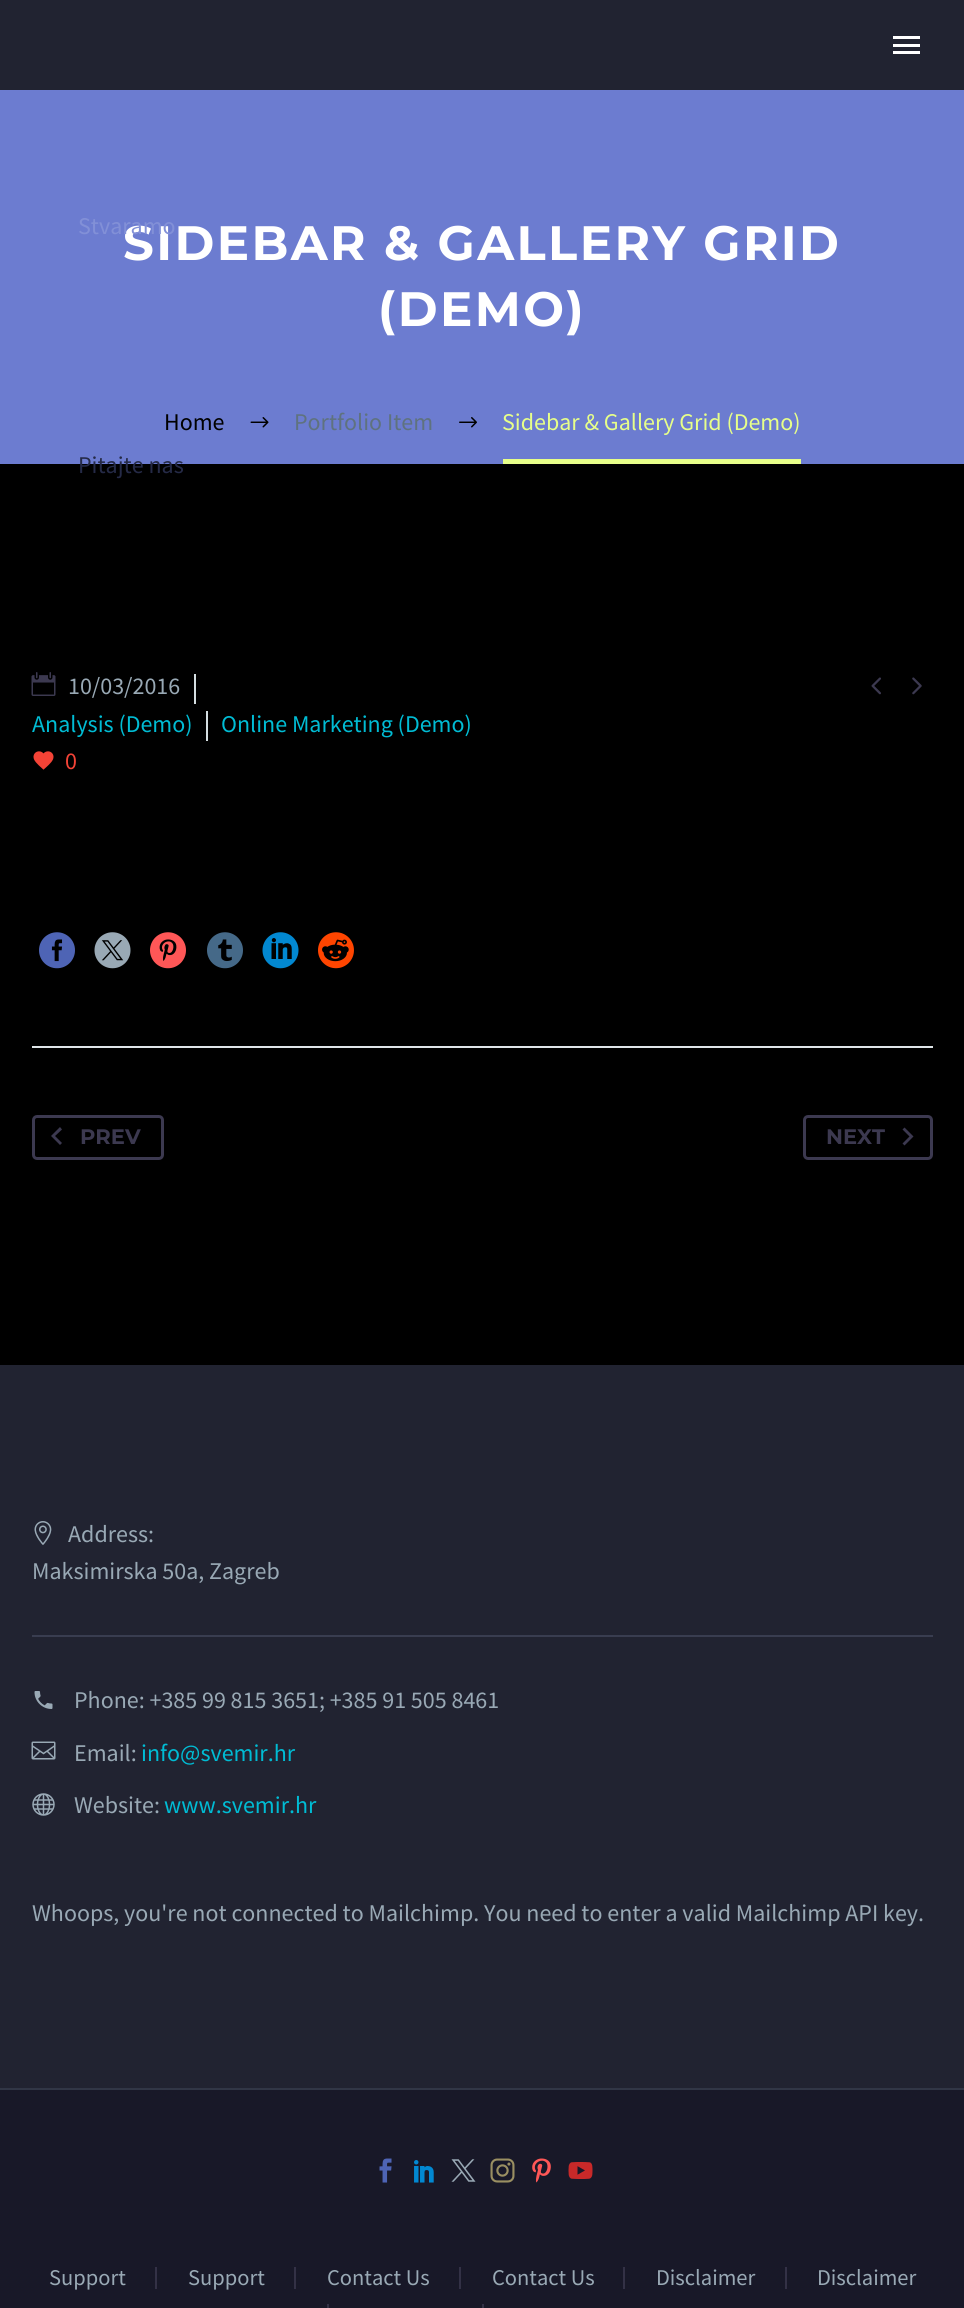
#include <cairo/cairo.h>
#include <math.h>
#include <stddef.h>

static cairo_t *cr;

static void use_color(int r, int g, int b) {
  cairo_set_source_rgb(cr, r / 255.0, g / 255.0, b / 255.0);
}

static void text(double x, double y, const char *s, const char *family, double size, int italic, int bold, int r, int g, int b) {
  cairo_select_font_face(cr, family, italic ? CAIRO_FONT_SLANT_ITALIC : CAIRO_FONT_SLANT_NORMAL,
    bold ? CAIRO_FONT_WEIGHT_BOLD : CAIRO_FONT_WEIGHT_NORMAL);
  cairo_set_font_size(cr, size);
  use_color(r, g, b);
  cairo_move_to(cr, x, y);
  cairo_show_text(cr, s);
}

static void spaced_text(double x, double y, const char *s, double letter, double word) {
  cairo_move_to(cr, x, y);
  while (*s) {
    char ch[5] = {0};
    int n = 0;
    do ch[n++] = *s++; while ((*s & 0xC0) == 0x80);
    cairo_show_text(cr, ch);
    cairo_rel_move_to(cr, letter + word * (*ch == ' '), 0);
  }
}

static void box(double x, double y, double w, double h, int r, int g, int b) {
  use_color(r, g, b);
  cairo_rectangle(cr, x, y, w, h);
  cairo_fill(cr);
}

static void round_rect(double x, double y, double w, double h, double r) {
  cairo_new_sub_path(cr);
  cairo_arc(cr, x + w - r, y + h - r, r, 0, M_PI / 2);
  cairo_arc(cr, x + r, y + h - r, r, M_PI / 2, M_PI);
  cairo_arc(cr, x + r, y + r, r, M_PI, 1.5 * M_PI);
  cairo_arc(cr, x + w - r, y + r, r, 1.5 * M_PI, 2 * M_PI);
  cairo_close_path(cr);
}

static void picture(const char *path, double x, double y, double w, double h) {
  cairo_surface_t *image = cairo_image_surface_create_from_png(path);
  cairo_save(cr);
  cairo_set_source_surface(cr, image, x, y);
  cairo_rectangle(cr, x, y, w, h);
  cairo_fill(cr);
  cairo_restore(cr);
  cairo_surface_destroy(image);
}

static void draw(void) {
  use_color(0, 0, 0);
  cairo_paint(cr);
  box(0, 0, 964, 90, 33, 35, 49);
  box(893, 36, 27, 3, 255, 255, 255);
  box(893, 44, 27, 3, 255, 255, 255);
  box(893, 51, 27, 3, 255, 255, 255);
  box(0, 90, 964, 374, 108, 124, 208);
  picture("img_01.png", 250, 417, 19, 11);
  picture("img_02.png", 459, 417, 18, 11);
  box(503, 459, 298, 5, 231, 255, 137);
  picture("img_03.png", 31, 672, 25, 24);
  box(194, 674, 2, 30, 212, 222, 225);
  box(206, 711, 2, 30, 212, 222, 225);
  picture("img_04.png", 33, 751, 21, 19);
  picture("img_05.png", 871, 677, 10, 18);
  picture("img_06.png", 912, 677, 10, 18);
  picture("img_07.png", 39, 932, 36, 37);
  picture("img_08.png", 94, 932, 37, 37);
  picture("img_09.png", 150, 932, 36, 37);
  picture("img_10.png", 207, 932, 36, 37);
  picture("img_11.png", 262, 932, 37, 37);
  picture("img_12.png", 318, 932, 36, 37);
  box(32, 1046, 901, 2, 223, 229, 232);
  round_rect(33.5, 1116.5, 129, 42, 3.5);
  use_color(60, 57, 80);
  cairo_set_line_width(cr, 3);
  cairo_stroke(cr);
  cairo_new_path(cr);
  cairo_move_to(cr, 62, 1143);
  cairo_line_to(cr, 55, 1136);
  cairo_line_to(cr, 62, 1129.5);
  cairo_line_to(cr, 60, 1127);
  cairo_line_to(cr, 51, 1136);
  cairo_line_to(cr, 60, 1145);
  cairo_close_path(cr);
  cairo_fill(cr);
  round_rect(804.5, 1116.5, 127, 42, 3.5);
  cairo_stroke(cr);
  cairo_new_path(cr);
  cairo_move_to(cr, 902.5, 1143.5);
  cairo_line_to(cr, 909.5, 1136.5);
  cairo_line_to(cr, 902.5, 1129.5);
  cairo_line_to(cr, 904.5, 1127.5);
  cairo_line_to(cr, 913.5, 1136.5);
  cairo_line_to(cr, 904.5, 1145.5);
  cairo_close_path(cr);
  cairo_fill(cr);
  box(0, 1365, 964, 723, 33, 35, 49);
  box(32, 1635, 901, 2, 57, 61, 80);
  picture("img_13.png", 34, 1521, 18, 24);
  picture("img_14.png", 34, 1691, 19, 18);
  picture("img_15.png", 31, 1741, 25, 19);
  picture("img_16.png", 32, 1793, 23, 23);
  box(0, 2090, 964, 218, 24, 24, 40);
  box(0, 2088, 964, 2, 49, 54, 70);
  picture("img_17.png", 379, 2158, 13, 25);
  picture("img_18.png", 414, 2160, 20, 23);
  picture("img_19.png", 451, 2159, 25, 23);
  picture("img_20.png", 490, 2158, 25, 25);
  picture("img_21.png", 532, 2158, 19, 25);
  picture("img_22.png", 568, 2162, 25, 17);
  box(155, 2267, 2, 22, 51, 49, 70);
  box(294, 2267, 2, 22, 51, 49, 70);
  box(459, 2267, 2, 22, 51, 49, 70);
  box(623, 2267, 2, 22, 51, 49, 70);
  box(785, 2267, 2, 22, 51, 49, 70);
  box(327, 2304, 2, 4, 51, 49, 70);
  box(482, 2304, 2, 4, 51, 49, 70);
  text(78, 473, "Pitajte nas", "Source Sans Pro", 24, 0, 0, 37, 42, 71);
  cairo_select_font_face(cr, "Montserrat", CAIRO_FONT_SLANT_NORMAL, CAIRO_FONT_WEIGHT_BOLD);
  cairo_set_font_size(cr, 48.25);
  use_color(255, 255, 255);
  spaced_text(123, 260, "SIDEBAR & GALLERY GRID", 2.4, 0);
  text(78, 234, "Stvaramo", "Source Sans Pro", 24, 0, 0, 130, 144, 215);
  cairo_select_font_face(cr, "Montserrat", CAIRO_FONT_SLANT_NORMAL, CAIRO_FONT_WEIGHT_BOLD);
  cairo_set_font_size(cr, 48.25);
  use_color(255, 255, 255);
  spaced_text(378, 326, "(DEMO)", 2.4, 0);
  text(164, 430, "Home", "Source Sans Pro", 24, 0, 0, 0, 0, 0);
  text(294, 430, "Portfolio Item", "Source Sans Pro", 24, 0, 0, 95, 114, 127);
  text(502, 430, "Sidebar & Gallery Grid (Demo)", "Source Sans Pro", 24, 0, 0, 231, 255, 137);
  text(68, 694, "10/03/2016", "Source Sans Pro", 24, 0, 0, 153, 169, 181);
  text(32, 732, "Analysis (Demo)", "Source Sans Pro", 24, 0, 0, 0, 188, 212);
  text(221, 732, "Online Marketing (Demo)", "Source Sans Pro", 24, 0, 0, 0, 188, 212);
  text(65, 769, "0", "Source Sans Pro", 24, 0, 0, 244, 67, 54);
  text(80, 1144, "PREV", "Montserrat", 21, 0, 1, 60, 57, 80);
  text(826, 1144, "NEXT", "Montserrat", 21, 0, 1, 60, 57, 80);
  text(68, 1542, "Address:", "Source Sans Pro", 24, 0, 0, 153, 169, 181);
  text(32, 1579, "Maksimirska 50a, Zagreb", "Source Sans Pro", 24, 0, 0, 153, 169, 181);
  text(74, 1708, "Phone: +385 99 815 3651; +385 91 505 8461", "Source Sans Pro", 24, 0, 0, 153, 169, 181);
  text(74, 1761, "Email:", "Source Sans Pro", 24, 0, 0, 153, 169, 181);
  text(141, 1761, "info@svemir.hr", "Source Sans Pro", 24, 0, 0, 0, 188, 212);
  text(74, 1813, "Website:", "Source Sans Pro", 24, 0, 0, 153, 169, 181);
  text(164, 1813, "www.svemir.hr", "Source Sans Pro", 24, 0, 0, 0, 188, 212);
  text(32, 1921, "Whoops, you're not connected to Mailchimp. You need to enter a valid Mailchimp API key.", "Source Sans Pro", 24, 0, 0, 153, 169, 181);
  text(49, 2285, "Support", "Source Sans Pro", 22.5, 0, 0, 153, 169, 181);
  text(188, 2285, "Support", "Source Sans Pro", 22.5, 0, 0, 153, 169, 181);
  text(327, 2285, "Contact Us", "Source Sans Pro", 22.5, 0, 0, 153, 169, 181);
  text(492, 2285, "Contact Us", "Source Sans Pro", 22.5, 0, 0, 153, 169, 181);
  text(656, 2285, "Disclaimer", "Source Sans Pro", 22.5, 0, 0, 153, 169, 181);
  text(817, 2285, "Disclaimer", "Source Sans Pro", 22.5, 0, 0, 153, 169, 181);
}

int main(void) {
  cairo_surface_t *surface = cairo_image_surface_create(CAIRO_FORMAT_RGB24, 964, 2308);
  cr = cairo_create(surface);
  cairo_font_options_t *options = cairo_font_options_create();
  cairo_font_options_set_hint_metrics(options, CAIRO_HINT_METRICS_OFF);
  cairo_font_options_set_hint_style(options, CAIRO_HINT_STYLE_NONE);
  cairo_set_font_options(cr, options);
  cairo_set_miter_limit(cr, 4);
  draw();
  cairo_surface_write_to_png(surface, "out.png");
  cairo_font_options_destroy(options);
  cairo_destroy(cr);
  cairo_surface_destroy(surface);
  return 0;
}
